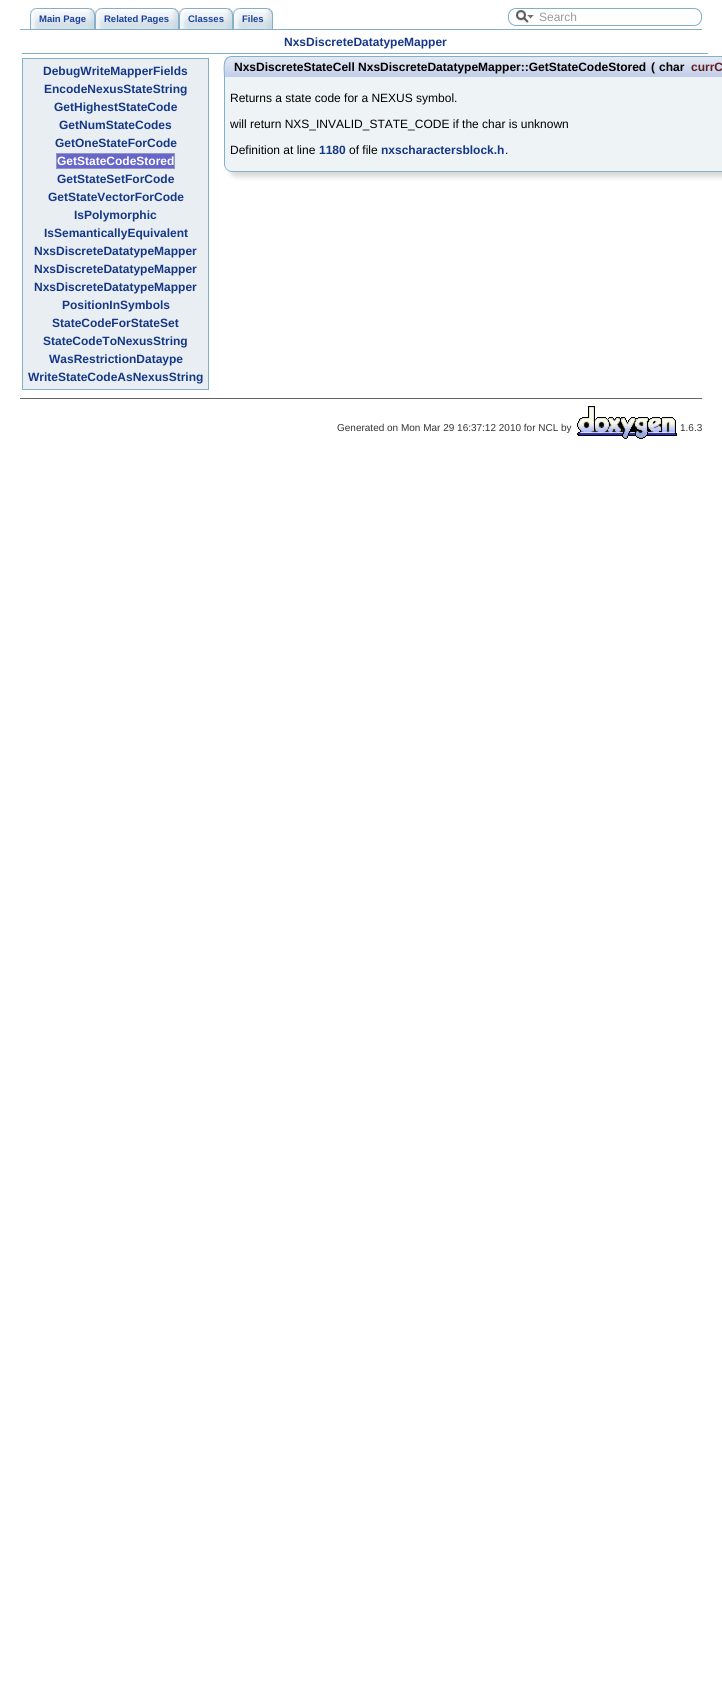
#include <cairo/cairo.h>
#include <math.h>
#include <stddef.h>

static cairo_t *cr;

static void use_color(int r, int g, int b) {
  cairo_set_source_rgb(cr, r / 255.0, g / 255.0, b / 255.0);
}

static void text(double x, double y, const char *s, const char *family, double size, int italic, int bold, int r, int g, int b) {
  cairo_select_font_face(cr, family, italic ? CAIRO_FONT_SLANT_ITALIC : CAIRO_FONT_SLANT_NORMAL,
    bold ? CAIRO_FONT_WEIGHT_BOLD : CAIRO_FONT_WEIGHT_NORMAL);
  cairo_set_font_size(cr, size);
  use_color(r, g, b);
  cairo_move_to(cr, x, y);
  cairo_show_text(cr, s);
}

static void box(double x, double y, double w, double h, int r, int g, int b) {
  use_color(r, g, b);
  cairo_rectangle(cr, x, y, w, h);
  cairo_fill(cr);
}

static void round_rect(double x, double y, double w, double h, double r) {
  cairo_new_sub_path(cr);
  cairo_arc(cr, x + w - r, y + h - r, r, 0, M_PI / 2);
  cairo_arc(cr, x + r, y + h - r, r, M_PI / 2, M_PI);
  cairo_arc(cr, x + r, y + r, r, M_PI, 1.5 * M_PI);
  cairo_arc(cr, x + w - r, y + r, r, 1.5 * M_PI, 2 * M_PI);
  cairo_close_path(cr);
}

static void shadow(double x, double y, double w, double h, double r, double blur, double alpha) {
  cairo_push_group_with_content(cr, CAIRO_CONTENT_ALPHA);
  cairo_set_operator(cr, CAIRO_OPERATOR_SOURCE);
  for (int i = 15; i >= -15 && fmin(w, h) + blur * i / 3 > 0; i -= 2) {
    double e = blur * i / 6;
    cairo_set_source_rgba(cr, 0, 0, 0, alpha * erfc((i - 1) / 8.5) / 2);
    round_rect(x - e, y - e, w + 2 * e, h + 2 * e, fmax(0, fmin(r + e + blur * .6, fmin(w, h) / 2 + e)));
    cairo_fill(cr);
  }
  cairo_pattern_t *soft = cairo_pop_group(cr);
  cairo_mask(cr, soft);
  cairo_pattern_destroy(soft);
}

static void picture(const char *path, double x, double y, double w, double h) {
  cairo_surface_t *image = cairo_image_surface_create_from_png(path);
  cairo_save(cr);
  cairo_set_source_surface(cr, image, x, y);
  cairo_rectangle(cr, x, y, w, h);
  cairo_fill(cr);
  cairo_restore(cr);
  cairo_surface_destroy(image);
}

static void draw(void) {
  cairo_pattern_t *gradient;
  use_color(255, 255, 255);
  cairo_paint(cr);
  box(20, 29, 682, 1, 132, 176, 199);
  picture("img_01.png", 39, 8, 56, 21);
  picture("img_02.png", 30, 8, 9, 21);
  picture("img_03.png", 104, 8, 75, 21);
  picture("img_02.png", 95, 8, 9, 21);
  picture("img_04.png", 188, 8, 45, 21);
  picture("img_02.png", 179, 8, 9, 21);
  picture("img_05.png", 242, 8, 31, 21);
  picture("img_02.png", 233, 8, 9, 21);
  round_rect(508.5, 8.5, 193, 17, 7.5);
  cairo_set_line_width(cr, 1);
  cairo_stroke(cr);
  picture("img_06.png", 515, 9, 19, 16);
  box(694, 9, 1, 16, 255, 255, 255);
  box(22, 53, 686, 1, 132, 176, 199);
  use_color(232, 238, 242);
  cairo_rectangle(cr, 22.5, 58.5, 186, 331);
  cairo_fill_preserve(cr);
  use_color(132, 176, 199);
  cairo_stroke(cr);
  use_color(102, 102, 204);
  cairo_rectangle(cr, 56.5, 153.5, 118, 15);
  cairo_fill_preserve(cr);
  use_color(146, 149, 194);
  cairo_stroke(cr);
  cairo_save(cr);
  cairo_new_path(cr);
  cairo_move_to(cr, 232, 56);
  cairo_line_to(cr, 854, 56);
  cairo_curve_to(cr, 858.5, 56, 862, 59.5, 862, 64);
  cairo_line_to(cr, 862, 77);
  cairo_line_to(cr, 224, 77);
  cairo_line_to(cr, 224, 64);
  cairo_curve_to(cr, 224, 59.5, 227.5, 56, 232, 56);
  cairo_close_path(cr);
  cairo_clip(cr);
  gradient = cairo_pattern_create_linear(225, 57, 225, 77);
  cairo_pattern_add_color_stop_rgba(gradient, 0, 0.894, 0.914, 0.961, 1);
  cairo_pattern_add_color_stop_rgba(gradient, 1, 0.757, 0.804, 0.91, 1);
  cairo_set_source(cr, gradient);
  cairo_pattern_destroy(gradient);
  cairo_rectangle(cr, 224, 57, 498, 20);
  cairo_fill(cr);
  cairo_restore(cr);
  use_color(132, 176, 199);
  cairo_set_fill_rule(cr, CAIRO_FILL_RULE_EVEN_ODD);
  cairo_new_path(cr);
  cairo_move_to(cr, 232, 56);
  cairo_line_to(cr, 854, 56);
  cairo_curve_to(cr, 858, 56, 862, 60, 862, 64);
  cairo_line_to(cr, 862, 77);
  cairo_line_to(cr, 224, 77);
  cairo_curve_to(cr, 224, 70, 221, 56, 232, 56);
  cairo_close_path(cr);
  cairo_move_to(cr, 232, 57);
  cairo_line_to(cr, 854, 57);
  cairo_curve_to(cr, 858, 57, 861, 60, 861, 64);
  cairo_line_to(cr, 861, 77);
  cairo_line_to(cr, 225, 77);
  cairo_curve_to(cr, 225, 71, 222, 57, 232, 57);
  cairo_close_path(cr);
  cairo_fill(cr);
  use_color(0, 0, 0);
  shadow(229, 82, 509, 95, 8, 2.5, 0.15);
  use_color(238, 243, 245);
  cairo_new_path(cr);
  cairo_move_to(cr, 224, 77);
  cairo_line_to(cr, 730, 77);
  cairo_line_to(cr, 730, 164);
  cairo_curve_to(cr, 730, 168.5, 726.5, 172, 722, 172);
  cairo_line_to(cr, 232, 172);
  cairo_curve_to(cr, 227.5, 172, 224, 168.5, 224, 164);
  cairo_close_path(cr);
  cairo_fill(cr);
  use_color(132, 176, 199);
  cairo_new_path(cr);
  cairo_move_to(cr, 224, 77);
  cairo_line_to(cr, 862, 77);
  cairo_line_to(cr, 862, 164);
  cairo_curve_to(cr, 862, 168, 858, 172, 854, 172);
  cairo_line_to(cr, 232, 172);
  cairo_curve_to(cr, 228, 172, 224, 168, 224, 164);
  cairo_close_path(cr);
  cairo_move_to(cr, 225, 77);
  cairo_line_to(cr, 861, 77);
  cairo_line_to(cr, 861, 164);
  cairo_curve_to(cr, 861, 168, 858, 171, 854, 171);
  cairo_line_to(cr, 232, 171);
  cairo_curve_to(cr, 228, 171, 225, 168, 225, 164);
  cairo_close_path(cr);
  cairo_fill(cr);
  box(20, 398, 682, 1, 102, 102, 102);
  picture("img_07.png", 577, 406, 100, 33);
  text(39, 22, "Main Page", "Liberation Sans", 9.5, 0, 1, 26, 65, 157);
  text(104, 22, "Related Pages", "Liberation Sans", 9.5, 0, 1, 26, 65, 157);
  text(188, 22, "Classes", "Liberation Sans", 9.5, 0, 1, 26, 65, 157);
  text(242, 22, "Files", "Liberation Sans", 9.5, 0, 1, 26, 65, 157);
  text(539, 21, "Search", "Liberation Sans", 12, 0, 0, 153, 153, 153);
  text(284, 46, "NxsDiscreteDatatypeMapper", "Liberation Sans", 12, 0, 1, 21, 55, 136);
  text(43, 75, "DebugWriteMapperFields", "Liberation Sans", 12, 0, 1, 21, 55, 136);
  text(44, 93, "EncodeNexusStateString", "Liberation Sans", 12, 0, 1, 21, 55, 136);
  text(54, 111, "GetHighestStateCode", "Liberation Sans", 12, 0, 1, 21, 55, 136);
  text(59, 129, "GetNumStateCodes", "Liberation Sans", 12, 0, 1, 21, 55, 136);
  text(55, 147, "GetOneStateForCode", "Liberation Sans", 12, 0, 1, 21, 55, 136);
  text(57, 165, "GetStateCodeStored", "Liberation Sans", 12, 0, 1, 255, 255, 255);
  text(57, 183, "GetStateSetForCode", "Liberation Sans", 12, 0, 1, 21, 55, 136);
  text(48, 201, "GetStateVectorForCode", "Liberation Sans", 12, 0, 1, 21, 55, 136);
  text(74, 219, "IsPolymorphic", "Liberation Sans", 12, 0, 1, 21, 55, 136);
  text(44, 237, "IsSemanticallyEquivalent", "Liberation Sans", 12, 0, 1, 21, 55, 136);
  text(34, 255, "NxsDiscreteDatatypeMapper", "Liberation Sans", 12, 0, 1, 21, 55, 136);
  text(34, 273, "NxsDiscreteDatatypeMapper", "Liberation Sans", 12, 0, 1, 21, 55, 136);
  text(34, 291, "NxsDiscreteDatatypeMapper", "Liberation Sans", 12, 0, 1, 21, 55, 136);
  text(62, 309, "PositionInSymbols", "Liberation Sans", 12, 0, 1, 21, 55, 136);
  text(52, 327, "StateCodeForStateSet", "Liberation Sans", 12, 0, 1, 21, 55, 136);
  text(43, 345, "StateCodeToNexusString", "Liberation Sans", 12, 0, 1, 21, 55, 136);
  text(49, 363, "WasRestrictionDataype", "Liberation Sans", 12, 0, 1, 21, 55, 136);
  text(28, 381, "WriteStateCodeAsNexusString", "Liberation Sans", 12, 0, 1, 21, 55, 136);
  text(234, 71, "NxsDiscreteStateCell NxsDiscreteDatatypeMapper::GetStateCodeStored", "Liberation Sans", 12, 0, 1, 0, 0, 0);
  text(651, 71, "(", "Liberation Sans", 12, 0, 1, 0, 0, 0);
  text(659, 71, "char", "Liberation Sans", 12, 0, 1, 0, 0, 0);
  text(691, 71, "currC", "Liberation Sans", 12, 0, 1, 96, 32, 32);
  text(230, 102, "Returns a state code for a NEXUS symbol.", "Liberation Sans", 12, 0, 0, 0, 0, 0);
  text(230, 128, "will return NXS_INVALID_STATE_CODE if the char is unknown", "Liberation Sans", 12, 0, 0, 0, 0, 0);
  text(230, 154, "Definition at line", "Liberation Sans", 12, 0, 0, 0, 0, 0);
  text(319, 154, "1180", "Liberation Sans", 12, 0, 1, 21, 55, 136);
  text(349, 154, "of file", "Liberation Sans", 12, 0, 0, 0, 0, 0);
  text(381, 154, "nxscharactersblock.h", "Liberation Sans", 12, 0, 1, 21, 55, 136);
  text(505, 154, ".", "Liberation Sans", 12, 0, 0, 0, 0, 0);
  text(337, 431, "Generated on Mon Mar 29 16:37:12 2010 for NCL by", "Liberation Sans", 10, 0, 0, 51, 51, 51);
  text(680, 431, "1.6.3", "Liberation Sans", 10, 0, 0, 51, 51, 51);
}

int main(void) {
  cairo_surface_t *surface = cairo_image_surface_create(CAIRO_FORMAT_RGB24, 722, 1707);
  cr = cairo_create(surface);
  cairo_font_options_t *options = cairo_font_options_create();
  cairo_font_options_set_hint_metrics(options, CAIRO_HINT_METRICS_OFF);
  cairo_font_options_set_hint_style(options, CAIRO_HINT_STYLE_NONE);
  cairo_set_font_options(cr, options);
  cairo_set_miter_limit(cr, 4);
  draw();
  cairo_surface_write_to_png(surface, "out.png");
  cairo_font_options_destroy(options);
  cairo_destroy(cr);
  cairo_surface_destroy(surface);
  return 0;
}
